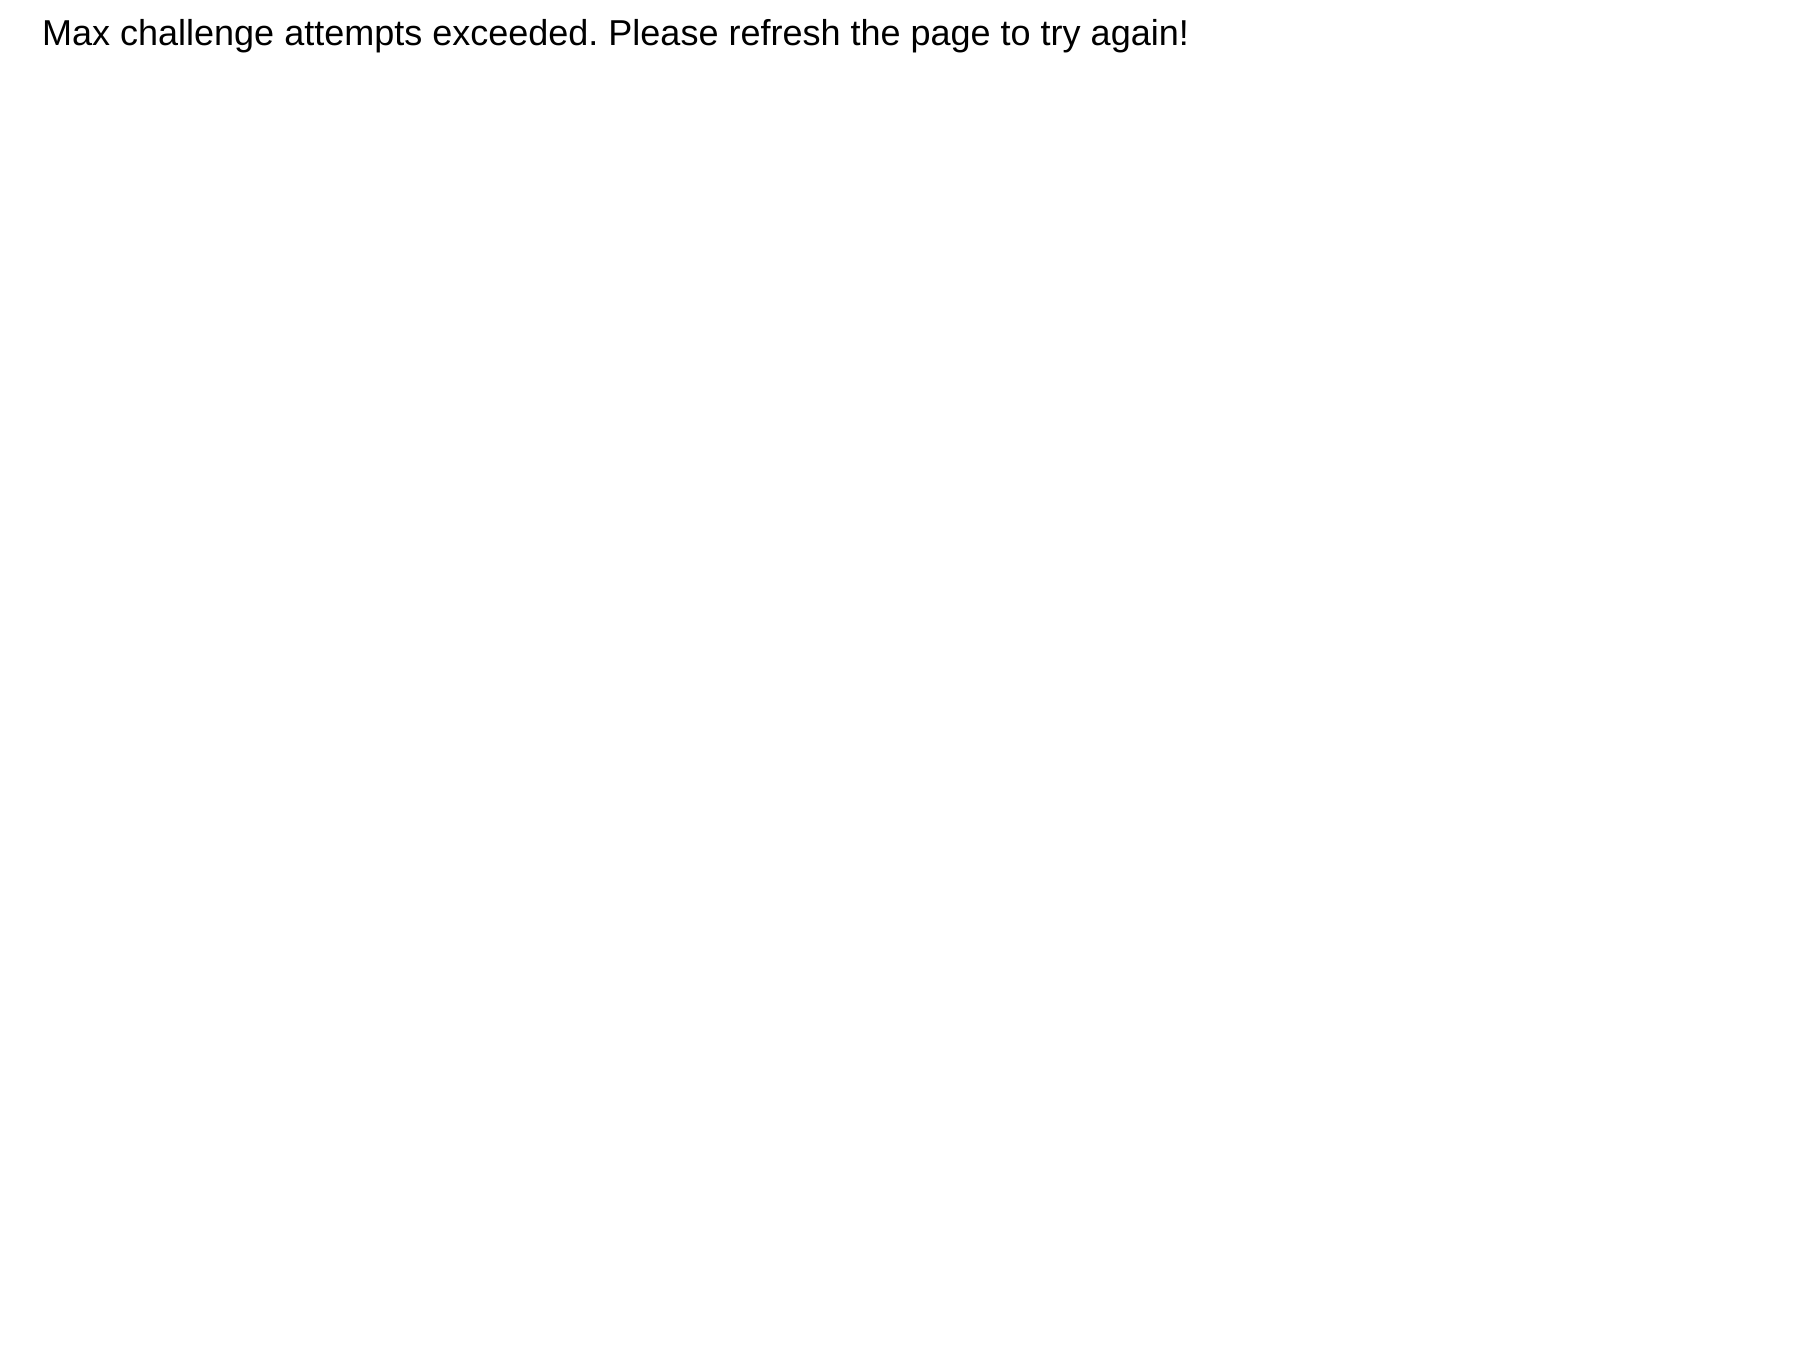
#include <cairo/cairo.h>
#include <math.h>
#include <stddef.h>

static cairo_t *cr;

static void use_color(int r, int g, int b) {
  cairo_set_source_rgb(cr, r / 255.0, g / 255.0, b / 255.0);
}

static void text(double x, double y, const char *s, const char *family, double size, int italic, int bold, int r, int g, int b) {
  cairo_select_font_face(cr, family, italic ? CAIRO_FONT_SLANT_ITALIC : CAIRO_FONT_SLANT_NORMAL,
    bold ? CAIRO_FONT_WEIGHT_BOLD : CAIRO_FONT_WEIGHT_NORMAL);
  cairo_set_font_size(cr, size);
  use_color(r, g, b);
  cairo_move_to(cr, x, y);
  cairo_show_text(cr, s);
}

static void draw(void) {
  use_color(255, 255, 255);
  cairo_paint(cr);
  text(42, 45, "Max challenge attempts exceeded. Please refresh the page to try again!", "Liberation Sans", 36, 0, 0, 0, 0, 0);
}

int main(void) {
  cairo_surface_t *surface = cairo_image_surface_create(CAIRO_FORMAT_RGB24, 1801, 1356);
  cr = cairo_create(surface);
  cairo_font_options_t *options = cairo_font_options_create();
  cairo_font_options_set_hint_metrics(options, CAIRO_HINT_METRICS_OFF);
  cairo_font_options_set_hint_style(options, CAIRO_HINT_STYLE_NONE);
  cairo_set_font_options(cr, options);
  cairo_set_miter_limit(cr, 4);
  draw();
  cairo_surface_write_to_png(surface, "out.png");
  cairo_font_options_destroy(options);
  cairo_destroy(cr);
  cairo_surface_destroy(surface);
  return 0;
}
